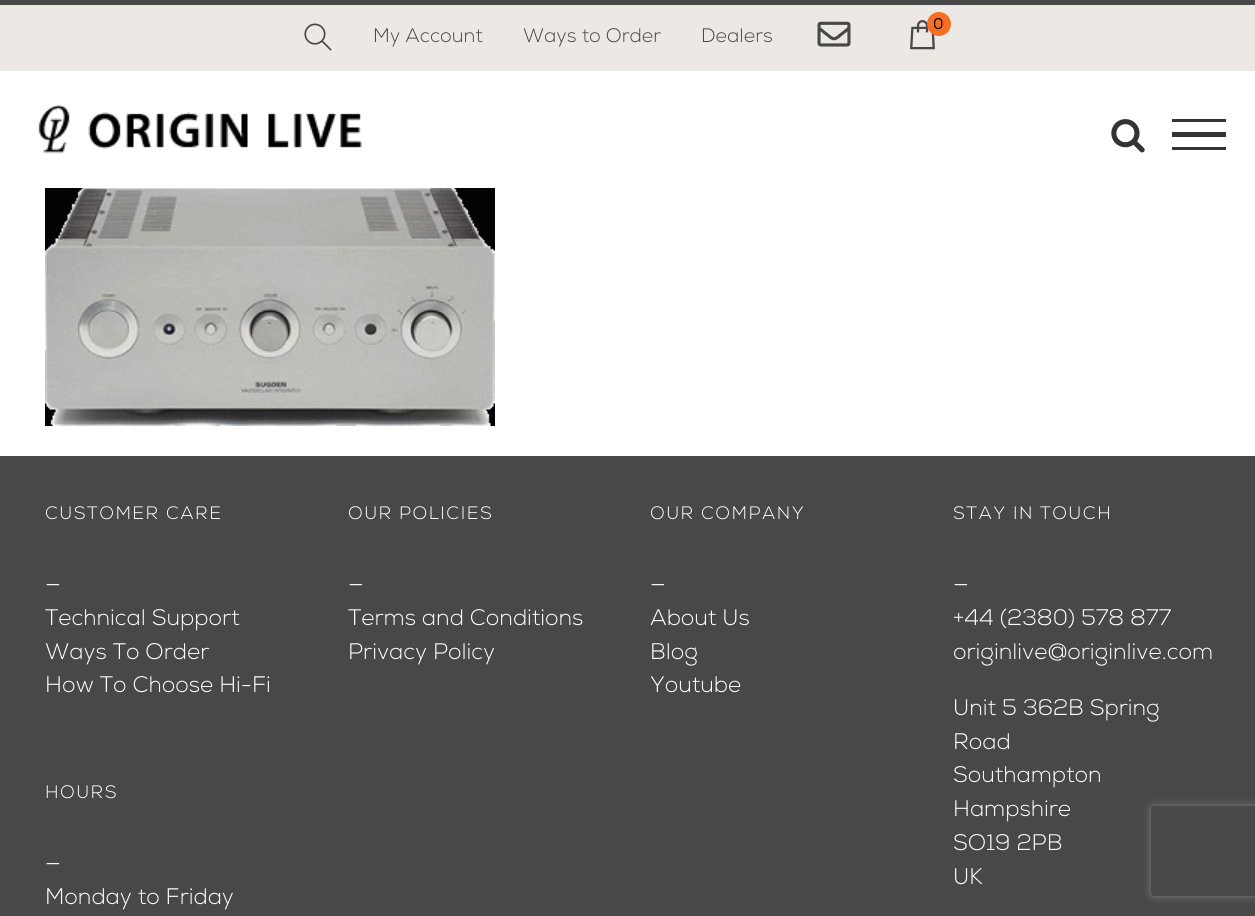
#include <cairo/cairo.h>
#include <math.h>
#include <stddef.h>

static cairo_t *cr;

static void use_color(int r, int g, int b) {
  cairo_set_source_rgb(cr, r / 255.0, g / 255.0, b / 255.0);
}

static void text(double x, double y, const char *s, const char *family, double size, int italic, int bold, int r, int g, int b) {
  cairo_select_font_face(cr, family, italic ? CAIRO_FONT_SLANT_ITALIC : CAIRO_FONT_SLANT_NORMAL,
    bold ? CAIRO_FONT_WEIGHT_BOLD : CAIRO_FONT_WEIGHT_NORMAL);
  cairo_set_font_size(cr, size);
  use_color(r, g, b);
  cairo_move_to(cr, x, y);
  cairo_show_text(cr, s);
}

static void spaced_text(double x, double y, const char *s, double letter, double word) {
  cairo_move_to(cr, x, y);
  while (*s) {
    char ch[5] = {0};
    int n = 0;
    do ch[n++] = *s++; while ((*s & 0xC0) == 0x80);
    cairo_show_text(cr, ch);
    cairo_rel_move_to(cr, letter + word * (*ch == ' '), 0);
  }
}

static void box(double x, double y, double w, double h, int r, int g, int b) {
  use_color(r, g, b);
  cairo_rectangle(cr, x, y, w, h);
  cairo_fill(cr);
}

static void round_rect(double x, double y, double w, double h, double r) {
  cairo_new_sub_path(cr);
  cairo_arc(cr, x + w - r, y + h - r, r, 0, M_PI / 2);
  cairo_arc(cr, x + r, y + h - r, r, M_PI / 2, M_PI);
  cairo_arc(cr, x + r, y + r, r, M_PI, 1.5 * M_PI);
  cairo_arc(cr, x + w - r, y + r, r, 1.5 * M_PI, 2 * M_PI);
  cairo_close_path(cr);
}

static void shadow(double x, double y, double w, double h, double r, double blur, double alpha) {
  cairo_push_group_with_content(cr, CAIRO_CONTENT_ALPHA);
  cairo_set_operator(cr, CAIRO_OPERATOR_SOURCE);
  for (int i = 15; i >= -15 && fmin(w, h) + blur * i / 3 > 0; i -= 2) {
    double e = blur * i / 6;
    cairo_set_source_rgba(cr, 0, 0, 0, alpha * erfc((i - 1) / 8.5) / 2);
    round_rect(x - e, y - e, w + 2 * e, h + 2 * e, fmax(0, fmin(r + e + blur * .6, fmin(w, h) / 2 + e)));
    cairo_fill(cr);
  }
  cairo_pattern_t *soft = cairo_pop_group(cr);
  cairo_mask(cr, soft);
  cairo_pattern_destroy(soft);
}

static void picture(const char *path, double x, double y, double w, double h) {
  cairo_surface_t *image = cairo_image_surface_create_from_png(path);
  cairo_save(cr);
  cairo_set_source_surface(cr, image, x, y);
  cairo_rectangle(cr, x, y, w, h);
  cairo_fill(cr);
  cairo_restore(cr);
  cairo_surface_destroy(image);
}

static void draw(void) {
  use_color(255, 255, 255);
  cairo_paint(cr);
  box(0, 5, 1255, 66, 236, 232, 228);
  box(0, 0, 1255, 5, 72, 72, 72);
  picture("img_01.png", 304, 23, 28, 28);
  picture("img_02.png", 817, 21, 34, 26);
  picture("img_03.png", 910, 20, 25, 30);
  use_color(247, 110, 37);
  cairo_arc(cr, 939, 24, 12, 0, 2 * M_PI);
  cairo_fill(cr);
  picture("img_04.png", 38, 104, 324, 50);
  picture("img_05.png", 1111, 119, 34, 34);
  box(1172, 119, 54, 3, 51, 51, 51);
  box(1172, 132, 54, 5, 51, 51, 51);
  box(1172, 147, 54, 3, 51, 51, 51);
  picture("img_06.png", 45, 188, 450, 238);
  box(0, 456, 1255, 460, 72, 72, 72);
  cairo_save(cr);
  cairo_set_fill_rule(cr, CAIRO_FILL_RULE_EVEN_ODD);
  cairo_new_path(cr);
  cairo_move_to(cr, 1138, 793);
  cairo_line_to(cr, 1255, 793);
  cairo_line_to(cr, 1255, 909);
  cairo_line_to(cr, 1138, 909);
  cairo_close_path(cr);
  cairo_move_to(cr, 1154, 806);
  cairo_line_to(cr, 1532, 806);
  cairo_curve_to(cr, 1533.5, 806, 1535, 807.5, 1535, 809);
  cairo_line_to(cr, 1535, 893);
  cairo_curve_to(cr, 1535, 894.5, 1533.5, 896, 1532, 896);
  cairo_line_to(cr, 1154, 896);
  cairo_curve_to(cr, 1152.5, 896, 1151, 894.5, 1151, 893);
  cairo_line_to(cr, 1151, 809);
  cairo_curve_to(cr, 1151, 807.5, 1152.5, 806, 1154, 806);
  cairo_close_path(cr);
  cairo_clip(cr);
  use_color(128, 128, 128);
  shadow(1151, 806, 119, 90, 3, 4, 1);
  cairo_restore(cr);
  text(373, 42, "My Account", "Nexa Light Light", 19.5, 0, 0, 72, 72, 72);
  text(523, 42, "Ways to Order", "Nexa Light Light", 19.5, 0, 0, 72, 72, 72);
  text(701, 42, "Dealers", "Nexa Light Light", 19.5, 0, 0, 72, 72, 72);
  text(933, 29, "0", "Nexa Light", 15, 0, 1, 0, 0, 0);
  cairo_select_font_face(cr, "Nexa Light Light", CAIRO_FONT_SLANT_NORMAL, CAIRO_FONT_WEIGHT_NORMAL);
  cairo_set_font_size(cr, 18);
  use_color(255, 255, 255);
  spaced_text(45, 519, "CUSTOMER CARE", 1.5, 0);
  text(45, 591, "—", "Nexa Light Light", 22.5, 0, 0, 255, 255, 255);
  text(45, 625, "Technical Support", "Nexa Light Light", 22.5, 0, 0, 255, 255, 255);
  text(45, 659, "Ways To Order", "Nexa Light Light", 22.5, 0, 0, 255, 255, 255);
  text(45, 692, "How To Choose Hi-Fi", "Nexa Light Light", 22.5, 0, 0, 255, 255, 255);
  cairo_set_font_size(cr, 18);
  spaced_text(45, 798, "HOURS", 1.5, 0);
  text(45, 870, "—", "Nexa Light Light", 22.5, 0, 0, 255, 255, 255);
  text(45, 904, "Monday to Friday", "Nexa Light Light", 22.5, 0, 0, 255, 255, 255);
  cairo_set_font_size(cr, 18);
  spaced_text(348, 519, "OUR POLICIES", 1.5, 0);
  text(348, 591, "—", "Nexa Light Light", 22.5, 0, 0, 255, 255, 255);
  text(348, 625, "Terms and Conditions", "Nexa Light Light", 22.5, 0, 0, 255, 255, 255);
  text(348, 659, "Privacy Policy", "Nexa Light Light", 22.5, 0, 0, 255, 255, 255);
  cairo_set_font_size(cr, 18);
  spaced_text(650, 519, "OUR COMPANY", 1.5, 0);
  text(650, 591, "—", "Nexa Light Light", 22.5, 0, 0, 255, 255, 255);
  text(650, 625, "About Us", "Nexa Light Light", 22.5, 0, 0, 255, 255, 255);
  text(650, 659, "Blog", "Nexa Light Light", 22.5, 0, 0, 255, 255, 255);
  text(650, 692, "Youtube", "Nexa Light Light", 22.5, 0, 0, 255, 255, 255);
  cairo_set_font_size(cr, 18);
  spaced_text(953, 519, "STAY IN TOUCH", 1.5, 0);
  text(953, 591, "—", "Nexa Light Light", 22.5, 0, 0, 255, 255, 255);
  text(953, 625, "+44 (2380) 578 877", "Nexa Light Light", 22.5, 0, 0, 255, 255, 255);
  text(953, 659, "originlive@originlive.com", "Nexa Light Light", 22.5, 0, 0, 255, 255, 255);
  text(953, 715, "Unit 5 362B Spring", "Nexa Light Light", 22.5, 0, 0, 255, 255, 255);
  text(953, 749, "Road", "Nexa Light Light", 22.5, 0, 0, 255, 255, 255);
  text(953, 782, "Southampton", "Nexa Light Light", 22.5, 0, 0, 255, 255, 255);
  text(953, 816, "Hampshire", "Nexa Light Light", 22.5, 0, 0, 255, 255, 255);
  text(953, 850, "SO19 2PB", "Nexa Light Light", 22.5, 0, 0, 255, 255, 255);
  text(953, 884, "UK", "Nexa Light Light", 22.5, 0, 0, 255, 255, 255);
}

int main(void) {
  cairo_surface_t *surface = cairo_image_surface_create(CAIRO_FORMAT_RGB24, 1255, 916);
  cr = cairo_create(surface);
  cairo_font_options_t *options = cairo_font_options_create();
  cairo_font_options_set_hint_metrics(options, CAIRO_HINT_METRICS_OFF);
  cairo_font_options_set_hint_style(options, CAIRO_HINT_STYLE_NONE);
  cairo_set_font_options(cr, options);
  cairo_set_miter_limit(cr, 4);
  draw();
  cairo_surface_write_to_png(surface, "out.png");
  cairo_font_options_destroy(options);
  cairo_destroy(cr);
  cairo_surface_destroy(surface);
  return 0;
}
